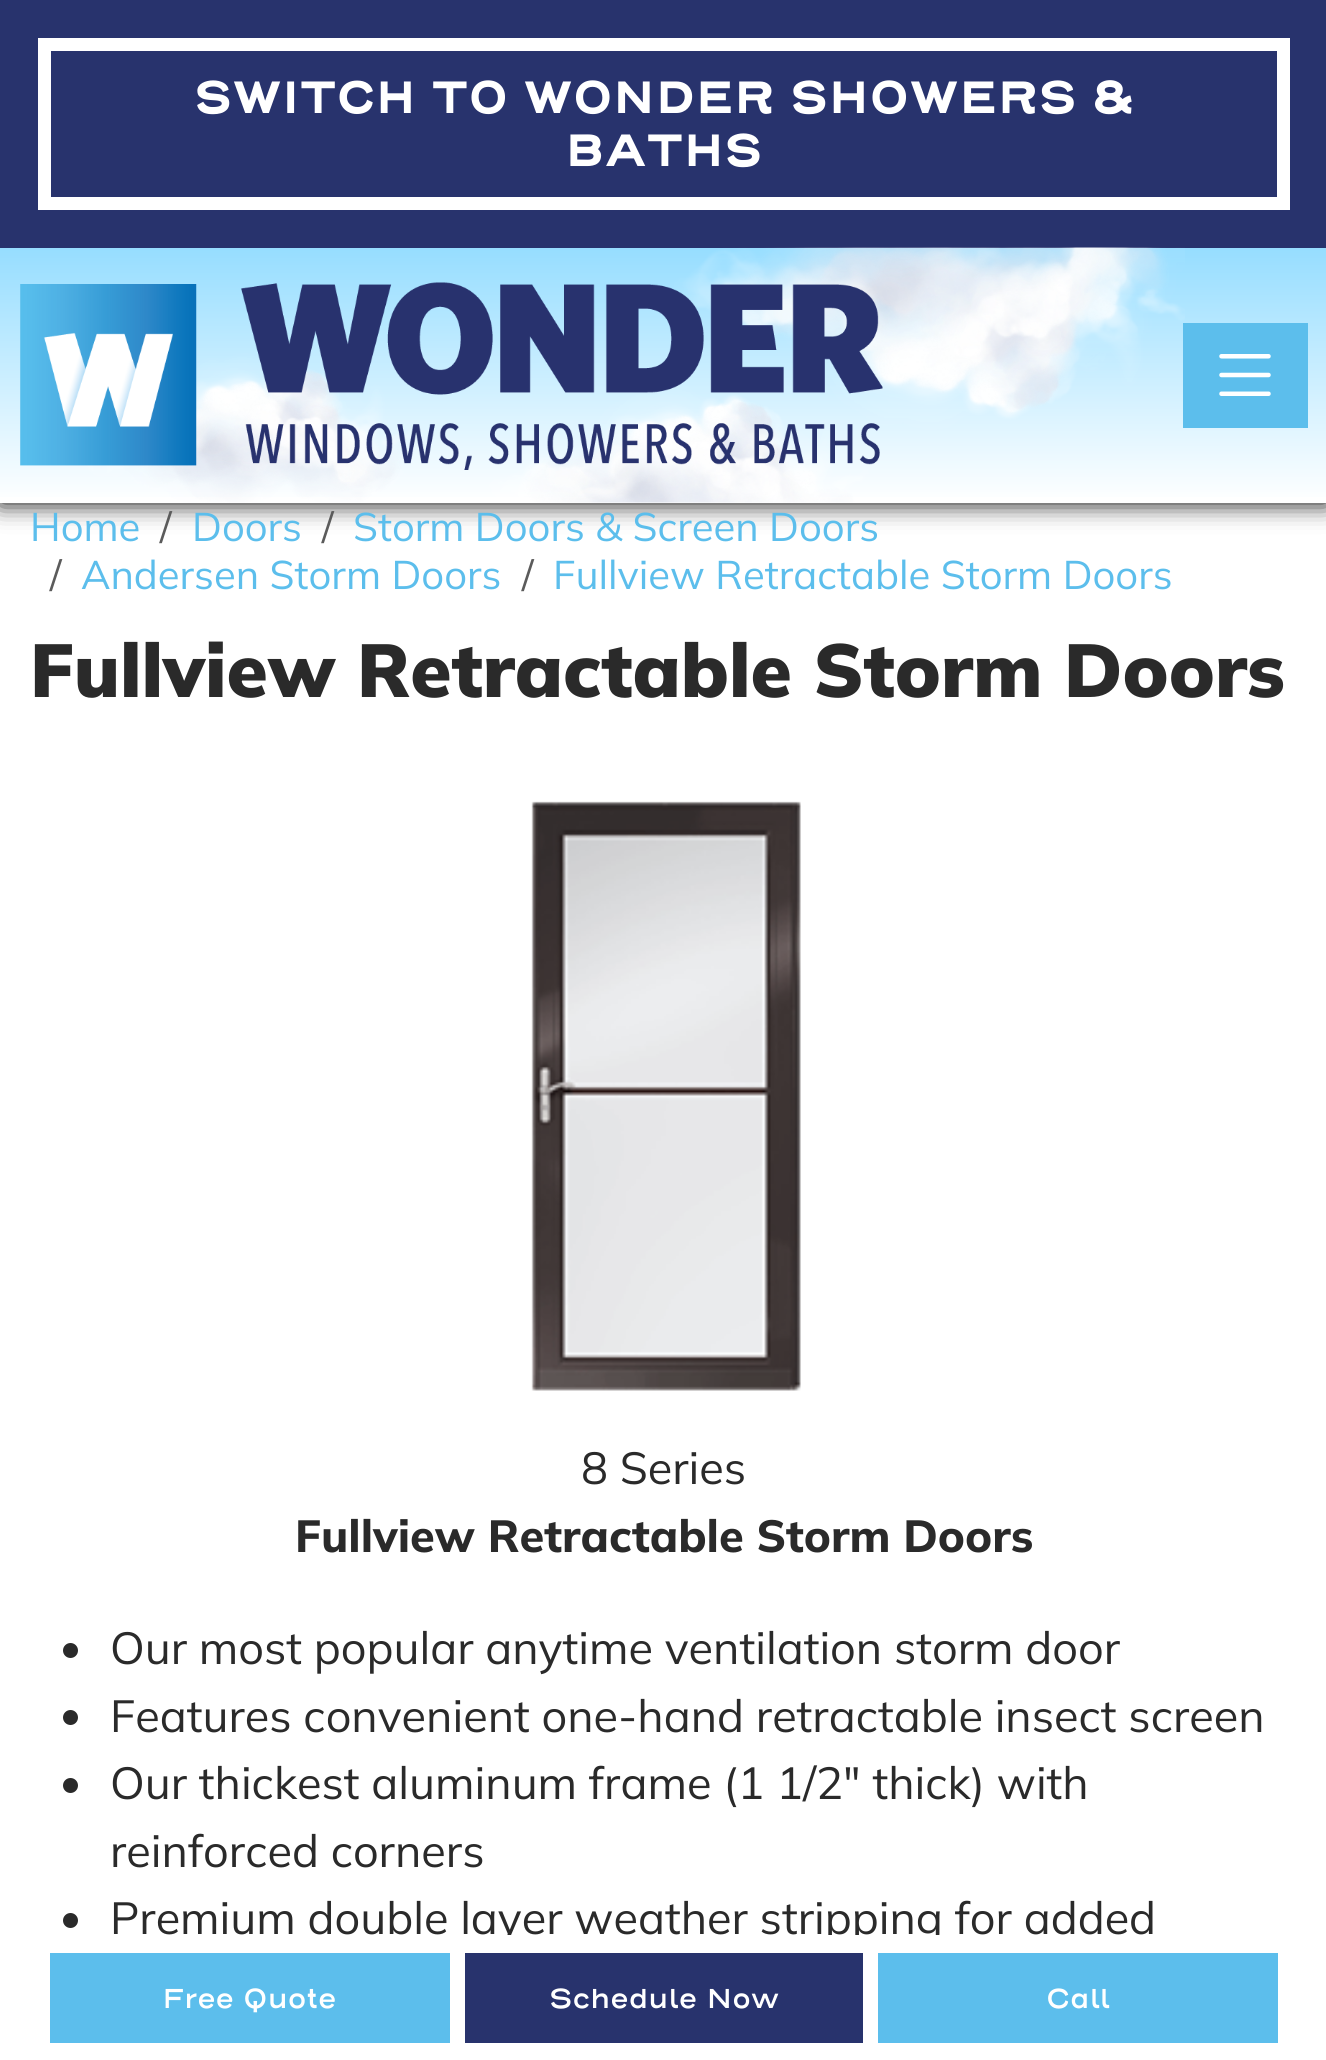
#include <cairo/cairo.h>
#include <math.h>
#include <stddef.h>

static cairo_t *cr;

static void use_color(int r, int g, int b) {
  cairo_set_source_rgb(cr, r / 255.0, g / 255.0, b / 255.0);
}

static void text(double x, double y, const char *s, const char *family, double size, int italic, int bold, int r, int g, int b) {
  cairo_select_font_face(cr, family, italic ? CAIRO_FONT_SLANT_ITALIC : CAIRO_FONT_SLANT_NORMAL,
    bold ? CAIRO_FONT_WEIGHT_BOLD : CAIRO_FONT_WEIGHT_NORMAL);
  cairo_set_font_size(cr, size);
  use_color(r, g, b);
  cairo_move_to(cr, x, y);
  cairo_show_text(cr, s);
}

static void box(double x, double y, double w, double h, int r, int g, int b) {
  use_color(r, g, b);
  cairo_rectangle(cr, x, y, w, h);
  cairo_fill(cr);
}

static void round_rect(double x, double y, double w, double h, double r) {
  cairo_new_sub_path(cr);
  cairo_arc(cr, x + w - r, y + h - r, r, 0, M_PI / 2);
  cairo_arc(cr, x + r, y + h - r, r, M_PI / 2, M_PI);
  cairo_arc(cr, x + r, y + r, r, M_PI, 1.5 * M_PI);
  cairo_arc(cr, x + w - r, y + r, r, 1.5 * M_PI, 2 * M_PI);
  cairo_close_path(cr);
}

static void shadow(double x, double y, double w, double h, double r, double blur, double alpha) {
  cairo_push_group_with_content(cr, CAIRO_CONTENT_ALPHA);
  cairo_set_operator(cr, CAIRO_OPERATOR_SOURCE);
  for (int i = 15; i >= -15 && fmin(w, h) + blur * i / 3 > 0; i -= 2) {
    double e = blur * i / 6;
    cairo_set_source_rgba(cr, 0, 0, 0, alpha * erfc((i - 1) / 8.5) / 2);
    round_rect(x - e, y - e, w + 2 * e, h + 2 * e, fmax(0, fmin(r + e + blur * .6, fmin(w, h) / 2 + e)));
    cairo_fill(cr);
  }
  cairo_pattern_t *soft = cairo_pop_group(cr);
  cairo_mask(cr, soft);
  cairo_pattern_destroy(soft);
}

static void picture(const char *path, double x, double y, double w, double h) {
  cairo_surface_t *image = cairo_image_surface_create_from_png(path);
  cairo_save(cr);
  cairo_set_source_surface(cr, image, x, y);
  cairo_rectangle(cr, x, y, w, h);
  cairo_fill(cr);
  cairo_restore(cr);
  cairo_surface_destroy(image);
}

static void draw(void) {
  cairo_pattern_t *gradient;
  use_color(255, 255, 255);
  cairo_paint(cr);
  gradient = cairo_pattern_create_linear(664, 247, 664, 503);
  cairo_pattern_add_color_stop_rgba(gradient, 0, 0.588, 0.867, 1, 1);
  cairo_pattern_add_color_stop_rgba(gradient, 1, 1, 1, 1, 1);
  cairo_set_source(cr, gradient);
  cairo_pattern_destroy(gradient);
  cairo_rectangle(cr, 0, 248, 1326, 249);
  cairo_fill(cr);
  cairo_save(cr);
  cairo_set_fill_rule(cr, CAIRO_FILL_RULE_EVEN_ODD);
  cairo_new_path(cr);
  cairo_move_to(cr, 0, 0);
  cairo_line_to(cr, 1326, 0);
  cairo_line_to(cr, 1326, 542);
  cairo_line_to(cr, 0, 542);
  cairo_close_path(cr);
  cairo_move_to(cr, 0, 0);
  cairo_line_to(cr, 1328, 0);
  cairo_line_to(cr, 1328, 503);
  cairo_line_to(cr, 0, 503);
  cairo_close_path(cr);
  cairo_clip(cr);
  use_color(0, 0, 0);
  shadow(0, 0, 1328, 503, 0, 12.5, 1);
  cairo_restore(cr);
  box(0, 0, 1326, 248, 40, 51, 109);
  cairo_rectangle(cr, 44.5, 44.5, 1239, 159);
  use_color(255, 255, 255);
  cairo_set_line_width(cr, 13);
  cairo_stroke(cr);
  picture("img_01.png", 85, 247, 1100, 256);
  picture("img_02.png", 20, 282, 863, 188);
  box(1183, 323, 125, 105, 92, 190, 236);
  picture("img_03.png", 1219, 354, 52, 42);
  picture("img_04.png", 531, 801, 270, 590);
  use_color(42, 42, 42);
  cairo_arc(cr, 70.5, 1650.5, 7.5, 0, 2 * M_PI);
  cairo_fill(cr);
  cairo_arc(cr, 70.5, 1717.5, 7.5, 0, 2 * M_PI);
  cairo_fill(cr);
  cairo_arc(cr, 70.5, 1785.5, 7.5, 0, 2 * M_PI);
  cairo_fill(cr);
  cairo_arc(cr, 70.5, 1920.5, 7.5, 0, 2 * M_PI);
  cairo_fill(cr);
  box(50, 1953, 400, 90, 92, 190, 236);
  box(465, 1953, 398, 90, 40, 51, 109);
  box(878, 1953, 400, 90, 92, 190, 236);
  text(194, 113, "SWITCH TO WONDER SHOWERS &", "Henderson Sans", 45, 0, 1, 255, 255, 255);
  text(565, 166, "BATHS", "Henderson Sans", 45, 0, 1, 255, 255, 255);
  text(30, 541, "Home", "Mulish", 40, 0, 0, 92, 190, 236);
  text(160, 541, "/", "Mulish", 40, 0, 0, 91, 91, 91);
  text(192, 541, "Doors", "Mulish", 40, 0, 0, 92, 190, 236);
  text(322, 541, "/", "Mulish", 40, 0, 0, 91, 91, 91);
  text(353, 541, "Storm Doors & Screen Doors", "Mulish", 40, 0, 0, 92, 190, 236);
  text(50, 589, "/", "Mulish", 40, 0, 0, 91, 91, 91);
  text(81, 589, "Andersen Storm Doors", "Mulish", 40, 0, 0, 92, 190, 236);
  text(522, 589, "/", "Mulish", 40, 0, 0, 91, 91, 91);
  text(553, 589, "Fullview Retractable Storm Doors", "Mulish", 40, 0, 0, 92, 190, 236);
  text(30, 697, "Fullview Retractable Storm Doors", "Mulish Black", 74.9, 0, 0, 42, 42, 42);
  text(581, 1484, "8 Series", "Mulish", 45, 0, 0, 42, 42, 42);
  text(295, 1552, "Fullview Retractable Storm Doors", "Mulish ExtraBold", 45, 0, 0, 42, 42, 42);
  text(110, 1664, "Our most popular anytime ventilation storm door", "Mulish", 45, 0, 0, 42, 42, 42);
  text(110, 1732, "Features convenient one-hand retractable insect screen", "Mulish", 45, 0, 0, 42, 42, 42);
  text(110, 1799, "Our thickest aluminum frame (1 1/2\" thick) with", "Mulish", 45, 0, 0, 42, 42, 42);
  text(110, 1867, "reinforced corners", "Mulish", 45, 0, 0, 42, 42, 42);
  text(110, 1934, "Premium double layer weather stripping for added", "Mulish", 45, 0, 0, 42, 42, 42);
  box(499, 1935, 441, 10, 255, 255, 255);
  text(162, 2008, "Free Quote", "Henderson Sans SemiBold", 27.5, 0, 0, 255, 255, 255);
  text(549, 2008, "Schedule Now", "Henderson Sans SemiBold", 27.5, 0, 0, 255, 255, 255);
  text(1046, 2008, "Call", "Henderson Sans SemiBold", 27.5, 0, 0, 255, 255, 255);
}

int main(void) {
  cairo_surface_t *surface = cairo_image_surface_create(CAIRO_FORMAT_RGB24, 1326, 2060);
  cr = cairo_create(surface);
  cairo_font_options_t *options = cairo_font_options_create();
  cairo_font_options_set_hint_metrics(options, CAIRO_HINT_METRICS_OFF);
  cairo_font_options_set_hint_style(options, CAIRO_HINT_STYLE_NONE);
  cairo_set_font_options(cr, options);
  cairo_set_miter_limit(cr, 4);
  draw();
  cairo_surface_write_to_png(surface, "out.png");
  cairo_font_options_destroy(options);
  cairo_destroy(cr);
  cairo_surface_destroy(surface);
  return 0;
}
